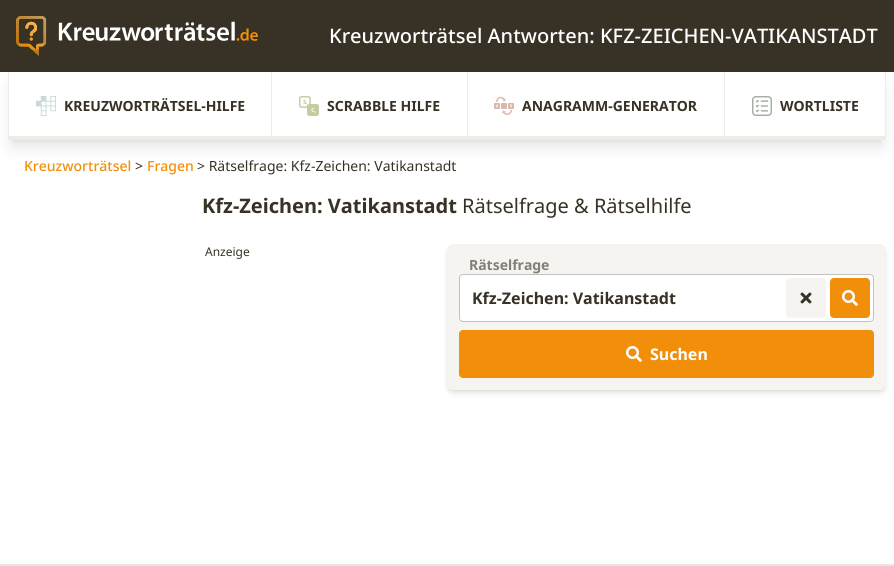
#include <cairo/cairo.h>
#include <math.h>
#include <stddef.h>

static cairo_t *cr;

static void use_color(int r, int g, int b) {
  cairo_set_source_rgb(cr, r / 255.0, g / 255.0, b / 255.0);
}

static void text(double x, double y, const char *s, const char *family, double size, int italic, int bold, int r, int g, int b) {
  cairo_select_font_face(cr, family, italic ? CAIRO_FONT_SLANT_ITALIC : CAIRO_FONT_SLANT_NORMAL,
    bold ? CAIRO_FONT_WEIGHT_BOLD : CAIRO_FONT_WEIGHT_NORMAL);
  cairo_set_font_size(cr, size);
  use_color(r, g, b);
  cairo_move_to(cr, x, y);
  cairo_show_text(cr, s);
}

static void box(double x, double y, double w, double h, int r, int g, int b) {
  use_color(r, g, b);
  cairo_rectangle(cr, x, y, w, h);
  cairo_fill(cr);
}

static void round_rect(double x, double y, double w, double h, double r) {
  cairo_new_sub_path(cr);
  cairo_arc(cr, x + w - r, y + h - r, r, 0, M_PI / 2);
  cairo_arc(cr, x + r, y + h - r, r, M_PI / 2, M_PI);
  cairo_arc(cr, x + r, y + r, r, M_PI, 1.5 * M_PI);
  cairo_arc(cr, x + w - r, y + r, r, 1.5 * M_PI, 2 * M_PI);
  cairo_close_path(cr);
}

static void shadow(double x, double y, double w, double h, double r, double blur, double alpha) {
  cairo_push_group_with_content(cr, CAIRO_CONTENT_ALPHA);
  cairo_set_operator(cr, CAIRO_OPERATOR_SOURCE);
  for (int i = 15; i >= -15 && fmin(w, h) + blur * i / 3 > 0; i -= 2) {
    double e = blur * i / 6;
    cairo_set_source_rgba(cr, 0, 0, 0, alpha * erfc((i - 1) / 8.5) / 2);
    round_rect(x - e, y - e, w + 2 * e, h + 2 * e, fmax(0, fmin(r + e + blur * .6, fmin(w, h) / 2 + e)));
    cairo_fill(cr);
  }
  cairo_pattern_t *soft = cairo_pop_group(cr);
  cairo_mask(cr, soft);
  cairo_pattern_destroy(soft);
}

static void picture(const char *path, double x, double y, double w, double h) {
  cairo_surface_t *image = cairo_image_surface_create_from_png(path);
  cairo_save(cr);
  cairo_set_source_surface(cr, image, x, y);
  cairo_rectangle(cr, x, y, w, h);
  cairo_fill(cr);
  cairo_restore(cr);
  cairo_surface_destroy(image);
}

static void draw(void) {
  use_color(255, 255, 255);
  cairo_paint(cr);
  box(0, 0, 894, 72, 56, 49, 37);
  picture("img_01.png", 16, 16, 242, 40);
  cairo_save(cr);
  cairo_rectangle(cr, 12, 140, 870, 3);
  cairo_clip(cr);
  use_color(0, 0, 0);
  shadow(12, 80, 870, 60, 0, 3, 0.1);
  cairo_restore(cr);
  cairo_save(cr);
  cairo_set_fill_rule(cr, CAIRO_FILL_RULE_EVEN_ODD);
  cairo_new_path(cr);
  cairo_move_to(cr, 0, 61);
  cairo_line_to(cr, 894, 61);
  cairo_line_to(cr, 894, 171);
  cairo_line_to(cr, 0, 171);
  cairo_close_path(cr);
  cairo_move_to(cr, 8, 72);
  cairo_line_to(cr, 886, 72);
  cairo_line_to(cr, 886, 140);
  cairo_line_to(cr, 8, 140);
  cairo_close_path(cr);
  cairo_clip(cr);
  use_color(0, 0, 0);
  shadow(11, 85, 872, 62, 0, 7.5, 0.1);
  cairo_restore(cr);
  box(8, 72, 1, 68, 238, 236, 231);
  picture("img_02.png", 36, 96, 20, 20);
  box(9, 136, 262, 4, 238, 236, 231);
  box(271, 72, 1, 68, 238, 236, 231);
  picture("img_03.png", 299, 96, 20, 20);
  box(272, 136, 195, 4, 238, 236, 231);
  box(467, 72, 1, 68, 238, 236, 231);
  picture("img_04.png", 494, 96, 20, 19);
  box(468, 136, 256, 4, 238, 236, 231);
  box(885, 72, 1, 68, 238, 236, 231);
  box(724, 72, 1, 68, 238, 236, 231);
  picture("img_05.png", 752, 96, 20, 20);
  box(725, 136, 160, 4, 238, 236, 231);
  use_color(0, 0, 0);
  shadow(449, 248, 435, 142, 4, 2, 0.1);
  shadow(448, 249, 437, 144, 5, 3, 0.1);
  use_color(245, 244, 241);
  round_rect(447, 244, 439, 146, 6);
  cairo_fill(cr);
  use_color(255, 255, 255);
  round_rect(459, 274, 415, 48, 4);
  cairo_fill(cr);
  round_rect(459.5, 274.5, 414, 47, 3.5);
  cairo_set_source_rgba(cr, 0.22, 0.192, 0.145, 0.3);
  cairo_set_line_width(cr, 1);
  cairo_stroke(cr);
  use_color(245, 244, 241);
  round_rect(786, 278, 40, 40, 4);
  cairo_fill(cr);
  picture("img_06.png", 800, 292, 12, 12);
  use_color(241, 143, 11);
  round_rect(830, 278, 40, 40, 4);
  cairo_fill(cr);
  picture("img_07.png", 842, 290, 16, 16);
  round_rect(459, 330, 415, 48, 4);
  cairo_fill(cr);
  picture("img_07.png", 626, 346, 16, 16);
  box(0, 564, 894, 2, 230, 230, 230);
  text(329, 43, "Kreuzworträtsel Antworten: KFZ-ZEICHEN-VATIKANSTADT", "Noto Sans Medium", 20, 0, 0, 255, 255, 255);
  text(64, 111, "KREUZWORTRÄTSEL-HILFE", "Noto Sans", 14, 0, 1, 56, 49, 37);
  text(327, 111, "SCRABBLE HILFE", "Noto Sans", 14, 0, 1, 56, 49, 37);
  text(522, 111, "ANAGRAMM-GENERATOR", "Noto Sans", 14, 0, 1, 56, 49, 37);
  text(780, 111, "WORTLISTE", "Noto Sans", 14, 0, 1, 56, 49, 37);
  text(24, 171, "Kreuzworträtsel", "Noto Sans Medium", 14, 0, 0, 241, 143, 11);
  text(135, 171, ">", "Noto Sans", 14, 0, 0, 56, 49, 37);
  text(147, 171, "Fragen", "Noto Sans Medium", 14, 0, 0, 241, 143, 11);
  text(197, 171, "> Rätselfrage: Kfz-Zeichen: Vatikanstadt", "Noto Sans", 14, 0, 0, 56, 49, 37);
  text(202, 213, "Kfz-Zeichen: Vatikanstadt", "Noto Sans", 20, 0, 1, 56, 49, 37);
  text(462, 213, "Rätselfrage & Rätselhilfe", "Noto Sans", 20, 0, 0, 56, 49, 37);
  text(205, 256, "Anzeige", "Noto Sans", 12, 0, 0, 56, 49, 37);
  text(469, 270, "Rätselfrage", "Noto Sans", 14, 0, 1, 132, 127, 119);
  text(472, 304, "Kfz-Zeichen: Vatikanstadt", "Noto Sans", 16, 0, 1, 56, 49, 37);
  text(650, 360, "Suchen", "Noto Sans", 16, 0, 1, 255, 255, 255);
}

int main(void) {
  cairo_surface_t *surface = cairo_image_surface_create(CAIRO_FORMAT_RGB24, 894, 566);
  cr = cairo_create(surface);
  cairo_font_options_t *options = cairo_font_options_create();
  cairo_font_options_set_hint_metrics(options, CAIRO_HINT_METRICS_OFF);
  cairo_font_options_set_hint_style(options, CAIRO_HINT_STYLE_NONE);
  cairo_set_font_options(cr, options);
  cairo_set_miter_limit(cr, 4);
  draw();
  cairo_surface_write_to_png(surface, "out.png");
  cairo_font_options_destroy(options);
  cairo_destroy(cr);
  cairo_surface_destroy(surface);
  return 0;
}
